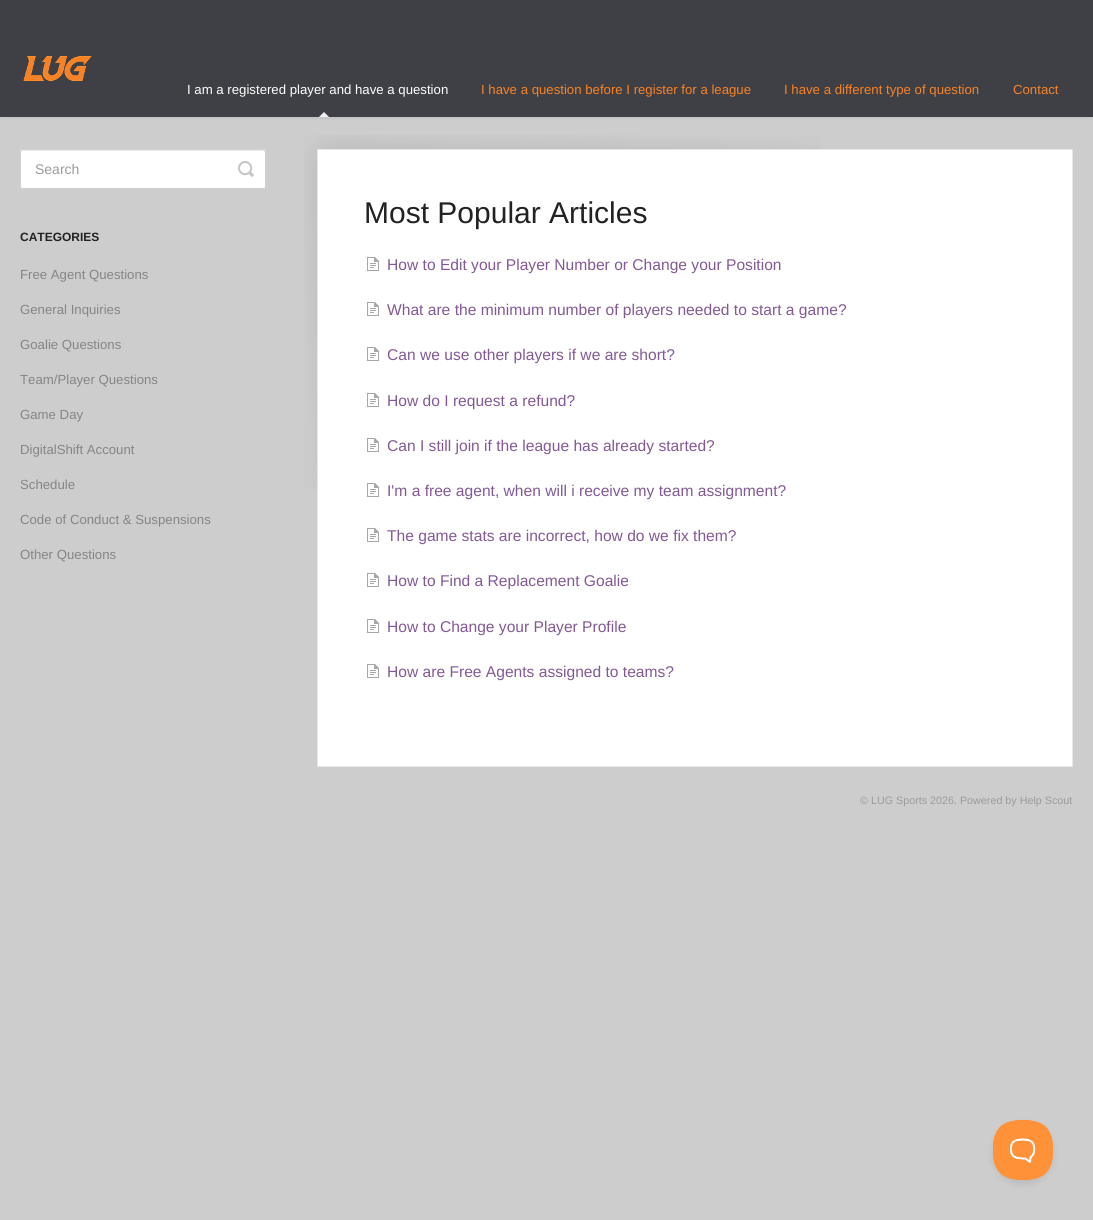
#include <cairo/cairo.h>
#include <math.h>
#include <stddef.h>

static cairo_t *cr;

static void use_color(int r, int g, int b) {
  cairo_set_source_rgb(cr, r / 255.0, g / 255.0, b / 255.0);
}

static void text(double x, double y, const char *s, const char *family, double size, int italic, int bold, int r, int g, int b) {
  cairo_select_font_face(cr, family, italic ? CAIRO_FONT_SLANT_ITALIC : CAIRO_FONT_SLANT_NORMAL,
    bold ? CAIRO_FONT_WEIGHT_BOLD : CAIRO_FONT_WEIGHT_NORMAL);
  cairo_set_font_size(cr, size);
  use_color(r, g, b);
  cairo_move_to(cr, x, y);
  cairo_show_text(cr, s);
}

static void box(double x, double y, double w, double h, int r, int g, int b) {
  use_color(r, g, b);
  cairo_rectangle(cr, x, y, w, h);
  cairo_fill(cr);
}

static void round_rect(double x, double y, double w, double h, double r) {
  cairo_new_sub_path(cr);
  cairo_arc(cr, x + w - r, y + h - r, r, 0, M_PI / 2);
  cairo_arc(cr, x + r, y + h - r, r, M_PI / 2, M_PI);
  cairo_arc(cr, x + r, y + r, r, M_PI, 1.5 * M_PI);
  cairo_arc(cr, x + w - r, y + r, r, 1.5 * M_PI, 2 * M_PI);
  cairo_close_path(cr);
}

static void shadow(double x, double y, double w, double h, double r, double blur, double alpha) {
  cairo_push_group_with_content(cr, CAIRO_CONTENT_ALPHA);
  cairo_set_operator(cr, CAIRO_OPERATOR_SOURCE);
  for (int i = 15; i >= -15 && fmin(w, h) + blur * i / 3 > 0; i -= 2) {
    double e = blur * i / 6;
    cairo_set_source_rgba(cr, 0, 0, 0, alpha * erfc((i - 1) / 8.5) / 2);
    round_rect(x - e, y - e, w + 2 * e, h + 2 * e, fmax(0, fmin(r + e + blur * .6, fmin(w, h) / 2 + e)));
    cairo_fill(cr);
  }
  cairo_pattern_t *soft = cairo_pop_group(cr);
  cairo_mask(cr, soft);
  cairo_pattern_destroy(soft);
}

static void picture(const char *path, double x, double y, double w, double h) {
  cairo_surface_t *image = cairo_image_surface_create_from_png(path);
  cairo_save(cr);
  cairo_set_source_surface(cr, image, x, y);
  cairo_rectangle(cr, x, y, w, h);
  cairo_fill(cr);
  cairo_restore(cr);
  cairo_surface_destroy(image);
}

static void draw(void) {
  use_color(205, 205, 205);
  cairo_paint(cr);
  use_color(0, 0, 0);
  shadow(0, 1, 1093, 117, 0, 2, 0.07);
  box(0, 0, 1093, 117, 63, 64, 69);
  picture("img_01.png", 23, 56, 69, 25);
  use_color(240, 240, 240);
  cairo_new_path(cr);
  cairo_move_to(cr, 329, 117);
  cairo_line_to(cr, 319, 117);
  cairo_line_to(cr, 324, 112);
  cairo_close_path(cr);
  cairo_fill(cr);
  use_color(255, 255, 255);
  round_rect(20, 149, 246, 40, 3);
  cairo_fill(cr);
  use_color(236, 236, 236);
  cairo_new_path(cr);
  cairo_move_to(cr, 23, 151);
  cairo_line_to(cr, 263, 151);
  cairo_curve_to(cr, 264, 151, 265, 152, 265, 153);
  cairo_line_to(cr, 265, 151);
  cairo_line_to(cr, 263, 150);
  cairo_line_to(cr, 23, 150);
  cairo_curve_to(cr, 21, 150, 21, 152, 21, 153);
  cairo_curve_to(cr, 21, 152, 22, 151, 23, 151);
  cairo_close_path(cr);
  cairo_fill(cr);
  round_rect(20.5, 149.5, 245, 39, 2.5);
  use_color(208, 208, 208);
  cairo_set_line_width(cr, 1);
  cairo_stroke(cr);
  picture("img_02.png", 238, 161, 16, 16);
  picture("img_03.png", 304, 135, 516, 354);
  use_color(255, 255, 255);
  cairo_rectangle(cr, 317.5, 149.5, 755, 617);
  cairo_fill_preserve(cr);
  use_color(233, 229, 229);
  cairo_stroke(cr);
  picture("img_04.png", 367, 257, 12, 14);
  picture("img_04.png", 367, 302, 12, 14);
  picture("img_04.png", 367, 347, 12, 14);
  picture("img_04.png", 367, 393, 12, 14);
  picture("img_04.png", 367, 438, 12, 14);
  picture("img_04.png", 367, 483, 12, 14);
  picture("img_04.png", 367, 528, 12, 14);
  picture("img_04.png", 367, 573, 12, 14);
  picture("img_04.png", 367, 619, 12, 14);
  picture("img_04.png", 367, 664, 12, 14);
  use_color(0, 0, 0);
  shadow(993, 1124, 60, 60, 30, 3.5, 0.1);
  picture("img_05.png", 993, 1120, 60, 60);
  text(187, 94, "I am a registered player and have a question", "Liberation Sans", 13.2, 0, 0, 255, 255, 255);
  text(481, 94, "I have a question before I register for a league", "Liberation Sans", 13.2, 0, 0, 250, 130, 35);
  text(784, 94, "I have a different type of question", "Liberation Sans", 13.2, 0, 0, 250, 130, 35);
  text(1013, 94, "Contact", "Liberation Sans", 13.2, 0, 0, 250, 130, 35);
  text(35, 174, "Search", "Liberation Sans", 14, 0, 0, 155, 155, 155);
  text(20, 241, "CATEGORIES", "Liberation Sans", 12, 0, 1, 34, 34, 34);
  text(20, 279, "Free Agent Questions", "Liberation Sans", 13.2, 0, 0, 133, 133, 133);
  text(20, 314, "General Inquiries", "Liberation Sans", 13.2, 0, 0, 133, 133, 133);
  text(20, 349, "Goalie Questions", "Liberation Sans", 13.2, 0, 0, 133, 133, 133);
  text(20, 384, "Team/Player Questions", "Liberation Sans", 13.2, 0, 0, 133, 133, 133);
  text(20, 419, "Game Day", "Liberation Sans", 13.2, 0, 0, 133, 133, 133);
  text(20, 454, "DigitalShift Account", "Liberation Sans", 13.2, 0, 0, 133, 133, 133);
  text(20, 489, "Schedule", "Liberation Sans", 13.2, 0, 0, 133, 133, 133);
  text(20, 524, "Code of Conduct & Suspensions", "Liberation Sans", 13.2, 0, 0, 133, 133, 133);
  text(20, 559, "Other Questions", "Liberation Sans", 13.2, 0, 0, 133, 133, 133);
  text(364, 223, "Most Popular Articles", "Liberation Sans", 30, 0, 0, 34, 34, 34);
  text(387, 270, "How to Edit your Player Number or Change your Position", "Liberation Sans", 15.6, 0, 0, 130, 89, 149);
  text(387, 315, "What are the minimum number of players needed to start a game?", "Liberation Sans", 15.6, 0, 0, 130, 89, 149);
  text(387, 360, "Can we use other players if we are short?", "Liberation Sans", 15.6, 0, 0, 130, 89, 149);
  text(387, 406, "How do I request a refund?", "Liberation Sans", 15.6, 0, 0, 130, 89, 149);
  text(387, 451, "Can I still join if the league has already started?", "Liberation Sans", 15.6, 0, 0, 130, 89, 149);
  text(387, 496, "I'm a free agent, when will i receive my team assignment?", "Liberation Sans", 15.6, 0, 0, 130, 89, 149);
  text(387, 541, "The game stats are incorrect, how do we fix them?", "Liberation Sans", 15.6, 0, 0, 130, 89, 149);
  text(387, 586, "How to Find a Replacement Goalie", "Liberation Sans", 15.6, 0, 0, 130, 89, 149);
  text(387, 632, "How to Change your Player Profile", "Liberation Sans", 15.6, 0, 0, 130, 89, 149);
  text(387, 677, "How are Free Agents assigned to teams?", "Liberation Sans", 15.6, 0, 0, 130, 89, 149);
  text(860, 804, "© LUG Sports 2026. Powered by Help Scout", "Liberation Sans", 10.75, 0, 0, 155, 155, 155);
}

int main(void) {
  cairo_surface_t *surface = cairo_image_surface_create(CAIRO_FORMAT_RGB24, 1093, 1220);
  cr = cairo_create(surface);
  cairo_font_options_t *options = cairo_font_options_create();
  cairo_font_options_set_hint_metrics(options, CAIRO_HINT_METRICS_OFF);
  cairo_font_options_set_hint_style(options, CAIRO_HINT_STYLE_NONE);
  cairo_set_font_options(cr, options);
  cairo_set_miter_limit(cr, 4);
  draw();
  cairo_surface_write_to_png(surface, "out.png");
  cairo_font_options_destroy(options);
  cairo_destroy(cr);
  cairo_surface_destroy(surface);
  return 0;
}
